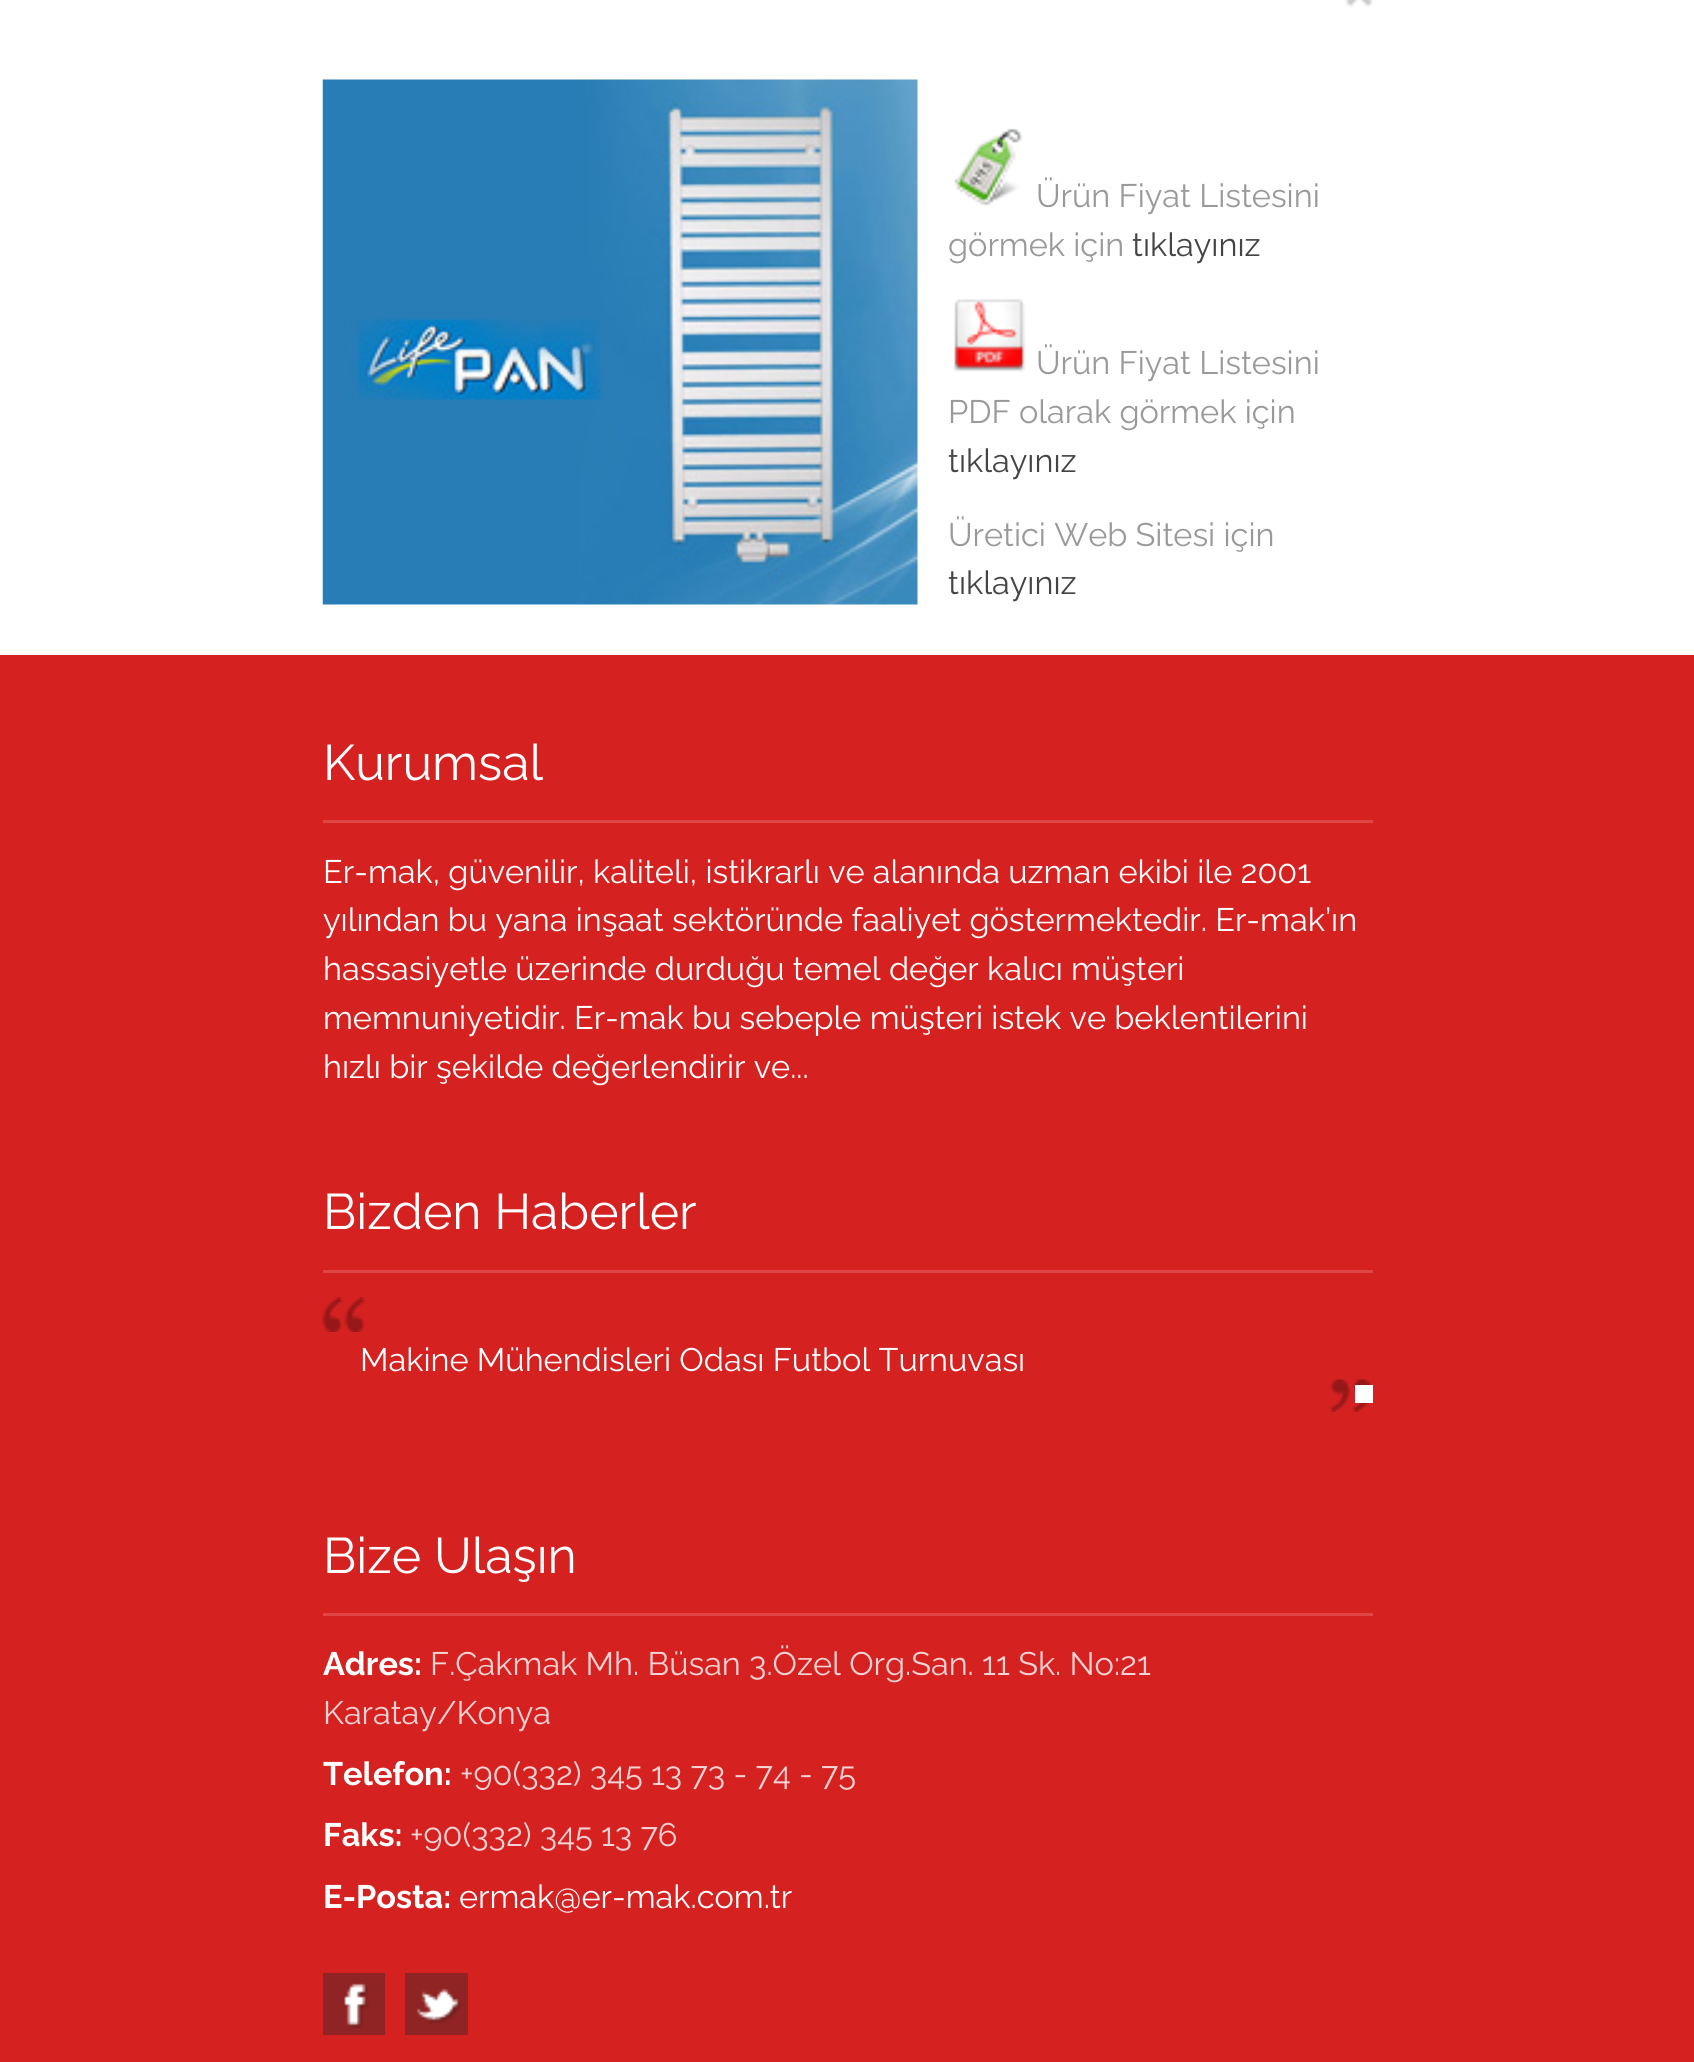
#include <cairo/cairo.h>
#include <math.h>
#include <stddef.h>

static cairo_t *cr;

static void use_color(int r, int g, int b) {
  cairo_set_source_rgb(cr, r / 255.0, g / 255.0, b / 255.0);
}

static void text(double x, double y, const char *s, const char *family, double size, int italic, int bold, int r, int g, int b) {
  cairo_select_font_face(cr, family, italic ? CAIRO_FONT_SLANT_ITALIC : CAIRO_FONT_SLANT_NORMAL,
    bold ? CAIRO_FONT_WEIGHT_BOLD : CAIRO_FONT_WEIGHT_NORMAL);
  cairo_set_font_size(cr, size);
  use_color(r, g, b);
  cairo_move_to(cr, x, y);
  cairo_show_text(cr, s);
}

static void box(double x, double y, double w, double h, int r, int g, int b) {
  use_color(r, g, b);
  cairo_rectangle(cr, x, y, w, h);
  cairo_fill(cr);
}

static void picture(const char *path, double x, double y, double w, double h) {
  cairo_surface_t *image = cairo_image_surface_create_from_png(path);
  cairo_save(cr);
  cairo_set_source_surface(cr, image, x, y);
  cairo_rectangle(cr, x, y, w, h);
  cairo_fill(cr);
  cairo_restore(cr);
  cairo_surface_destroy(image);
}

static void draw(void) {
  use_color(255, 255, 255);
  cairo_paint(cr);
  picture("img_01.png", 1345, 0, 28, 7);
  picture("img_02.png", 322, 79, 596, 526);
  picture("img_03.png", 954, 128, 69, 78);
  picture("img_04.png", 953, 299, 73, 73);
  box(0, 655, 1694, 1407, 214, 33, 33);
  box(323, 820, 1050, 3, 225, 70, 70);
  box(323, 1270, 1050, 3, 225, 70, 70);
  picture("img_05.png", 322, 1297, 1050, 115);
  box(1355, 1385, 18, 18, 255, 255, 255);
  box(323, 1613, 1050, 3, 225, 70, 70);
  box(323, 1973, 62, 62, 144, 36, 36);
  picture("img_06.png", 344, 1983, 25, 46);
  box(405, 1973, 63, 62, 144, 36, 36);
  picture("img_07.png", 416, 1988, 46, 36);
  text(1036, 207, "Ürün Fiyat Listesini", "Raleway", 32.5, 0, 0, 153, 153, 153);
  text(948, 256, "görmek için", "Raleway", 32.5, 0, 0, 153, 153, 153);
  text(1132, 256, "tıklayınız", "Raleway", 32.5, 0, 0, 68, 68, 68);
  text(1036, 374, "Ürün Fiyat Listesini", "Raleway", 32.5, 0, 0, 153, 153, 153);
  text(948, 423, "PDF olarak görmek için", "Raleway", 32.5, 0, 0, 153, 153, 153);
  text(948, 472, "tıklayınız", "Raleway", 32.5, 0, 0, 68, 68, 68);
  text(948, 546, "Üretici Web Sitesi için", "Raleway", 32.5, 0, 0, 153, 153, 153);
  text(948, 594, "tıklayınız", "Raleway", 32.5, 0, 0, 68, 68, 68);
  text(323, 780, "Kurumsal", "Raleway", 50, 0, 0, 255, 255, 255);
  text(323, 883, "Er-mak, güvenilir, kaliteli, istikrarlı ve alanında uzman ekibi ile 2001", "Raleway", 32.5, 0, 0, 255, 255, 255);
  text(323, 931, "yılından bu yana inşaat sektöründe faaliyet göstermektedir. Er-mak’ın", "Raleway", 32.5, 0, 0, 255, 255, 255);
  text(323, 980, "hassasiyetle üzerinde durduğu temel değer kalıcı müşteri", "Raleway", 32.5, 0, 0, 255, 255, 255);
  text(323, 1029, "memnuniyetidir. Er-mak bu sebeple müşteri istek ve beklentilerini", "Raleway", 32.5, 0, 0, 255, 255, 255);
  text(323, 1078, "hızlı bir şekilde değerlendirir ve...", "Raleway", 32.5, 0, 0, 255, 255, 255);
  text(323, 1229, "Bizden Haberler", "Raleway", 50, 0, 0, 255, 255, 255);
  text(360, 1371, "Makine Mühendisleri Odası Futbol Turnuvası", "Raleway", 32.5, 0, 0, 255, 255, 255);
  text(323, 1573, "Bize Ulaşın", "Raleway", 50, 0, 0, 255, 255, 255);
  text(323, 1675, "Adres:", "Raleway", 32.5, 0, 1, 255, 255, 255);
  text(430, 1675, "F.Çakmak Mh. Büsan 3.Özel Org.San. 11 Sk. No:21", "Raleway", 32.5, 0, 0, 247, 211, 211);
  text(323, 1724, "Karatay/Konya", "Raleway", 32.5, 0, 0, 247, 211, 211);
  text(323, 1785, "Telefon:", "Raleway", 32.5, 0, 1, 255, 255, 255);
  text(460, 1785, "+90(332) 345 13 73 - 74 - 75", "Raleway", 32.5, 0, 0, 247, 211, 211);
  text(323, 1846, "Faks:", "Raleway", 32.5, 0, 1, 255, 255, 255);
  text(410, 1846, "+90(332) 345 13 76", "Raleway", 32.5, 0, 0, 247, 211, 211);
  text(323, 1908, "E-Posta:", "Raleway", 32.5, 0, 1, 255, 255, 255);
  text(459, 1908, "ermak@er-mak.com.tr", "Raleway", 32.5, 0, 0, 255, 255, 255);
}

int main(void) {
  cairo_surface_t *surface = cairo_image_surface_create(CAIRO_FORMAT_RGB24, 1694, 2062);
  cr = cairo_create(surface);
  cairo_font_options_t *options = cairo_font_options_create();
  cairo_font_options_set_hint_metrics(options, CAIRO_HINT_METRICS_OFF);
  cairo_font_options_set_hint_style(options, CAIRO_HINT_STYLE_NONE);
  cairo_set_font_options(cr, options);
  cairo_set_miter_limit(cr, 4);
  draw();
  cairo_surface_write_to_png(surface, "out.png");
  cairo_font_options_destroy(options);
  cairo_destroy(cr);
  cairo_surface_destroy(surface);
  return 0;
}
